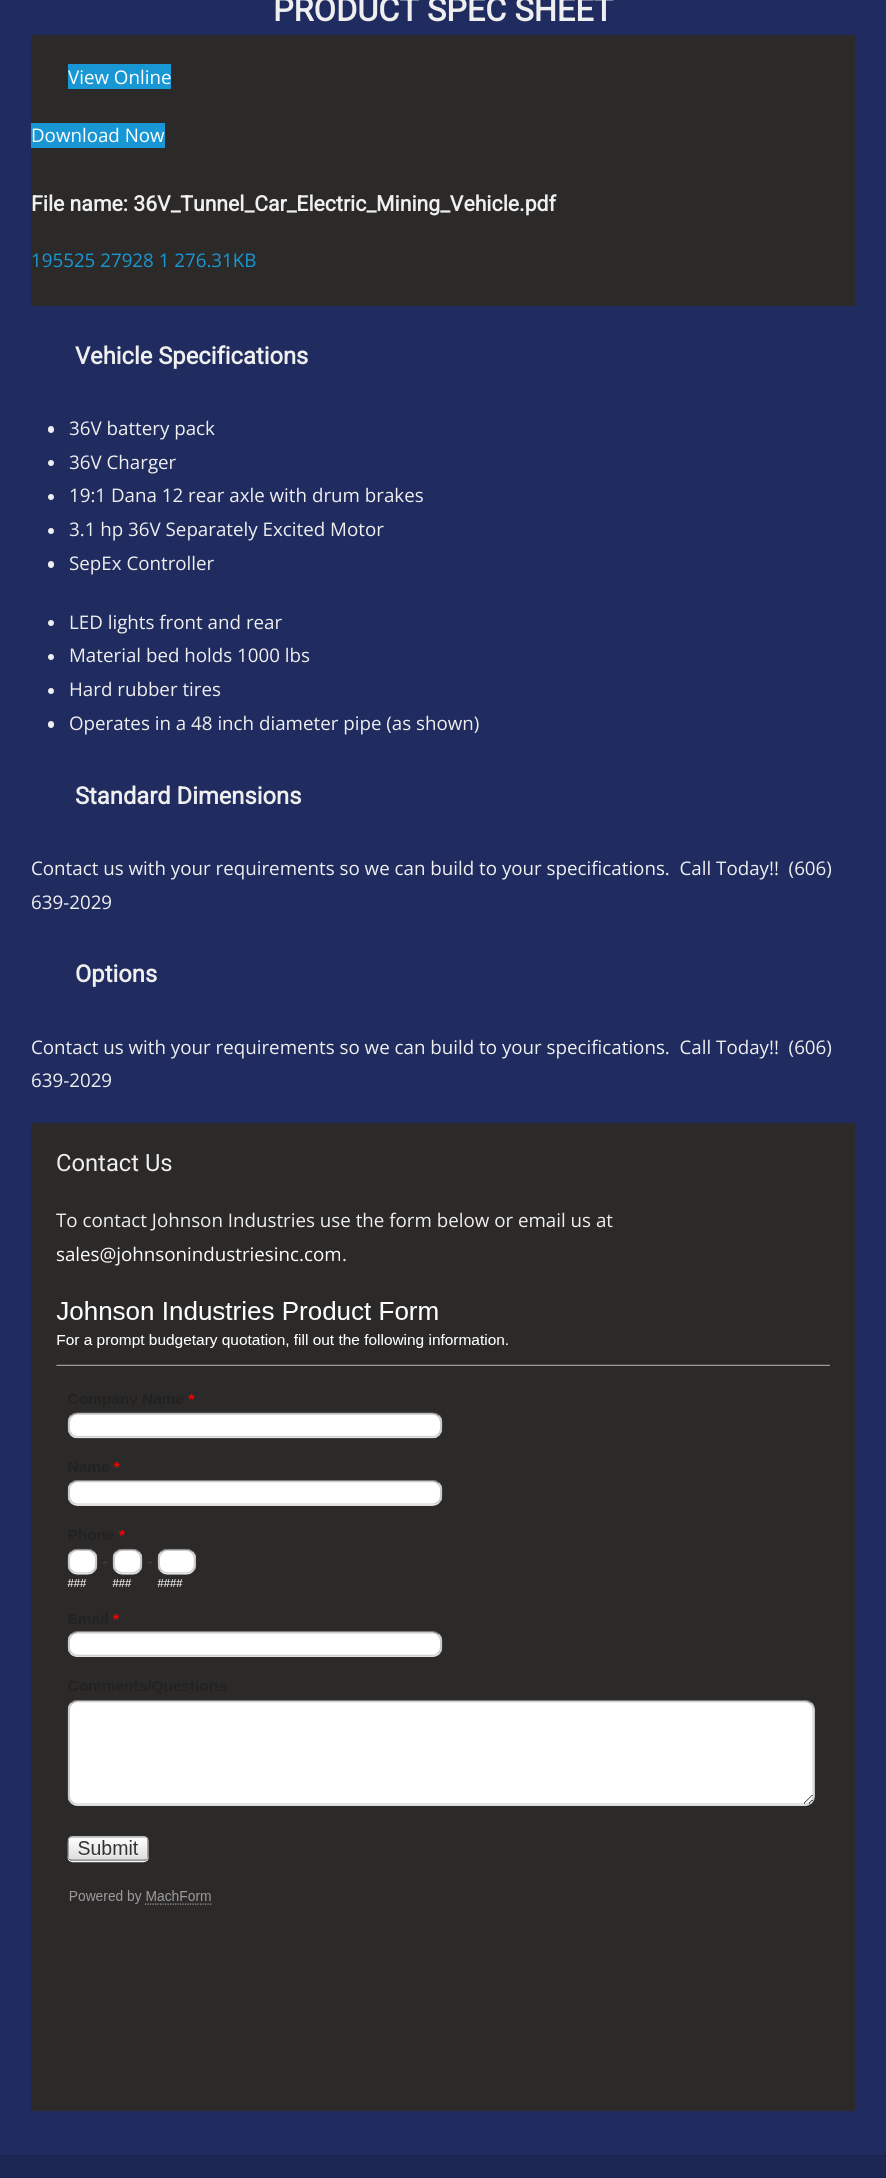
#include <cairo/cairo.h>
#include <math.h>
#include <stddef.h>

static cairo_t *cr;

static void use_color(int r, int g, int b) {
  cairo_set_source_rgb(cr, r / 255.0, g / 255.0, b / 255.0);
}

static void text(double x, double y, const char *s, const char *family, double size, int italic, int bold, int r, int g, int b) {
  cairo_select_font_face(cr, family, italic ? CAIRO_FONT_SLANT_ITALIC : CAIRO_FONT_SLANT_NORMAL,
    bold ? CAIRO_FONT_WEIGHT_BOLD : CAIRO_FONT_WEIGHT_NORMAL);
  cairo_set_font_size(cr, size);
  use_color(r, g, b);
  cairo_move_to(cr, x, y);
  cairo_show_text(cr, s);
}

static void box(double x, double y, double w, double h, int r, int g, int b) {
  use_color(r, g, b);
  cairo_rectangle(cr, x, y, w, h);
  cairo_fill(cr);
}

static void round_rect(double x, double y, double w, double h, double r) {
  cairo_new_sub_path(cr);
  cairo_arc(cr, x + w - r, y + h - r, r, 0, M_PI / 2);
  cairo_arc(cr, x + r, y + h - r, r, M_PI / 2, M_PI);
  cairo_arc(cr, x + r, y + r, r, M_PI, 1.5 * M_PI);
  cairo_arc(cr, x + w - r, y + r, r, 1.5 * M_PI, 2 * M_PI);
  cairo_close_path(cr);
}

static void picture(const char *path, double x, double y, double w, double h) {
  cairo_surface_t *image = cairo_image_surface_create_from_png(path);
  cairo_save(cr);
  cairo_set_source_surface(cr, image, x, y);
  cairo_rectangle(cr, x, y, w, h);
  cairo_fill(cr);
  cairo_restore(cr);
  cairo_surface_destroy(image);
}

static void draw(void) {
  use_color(32, 44, 95);
  cairo_paint(cr);
  box(31, 35, 824, 271, 44, 42, 41);
  box(68, 64, 103, 25, 24, 151, 212);
  box(31, 123, 134, 25, 24, 151, 212);
  use_color(239, 239, 239);
  round_rect(48, 426, 6, 7, 3);
  cairo_fill(cr);
  cairo_arc(cr, 51, 463, 3, 0, 2 * M_PI);
  cairo_fill(cr);
  cairo_arc(cr, 51, 497, 3, 0, 2 * M_PI);
  cairo_fill(cr);
  cairo_arc(cr, 51, 531, 3, 0, 2 * M_PI);
  cairo_fill(cr);
  round_rect(48, 561, 6, 7, 3);
  cairo_fill(cr);
  cairo_arc(cr, 51, 623, 3, 0, 2 * M_PI);
  cairo_fill(cr);
  cairo_arc(cr, 51, 657, 3, 0, 2 * M_PI);
  cairo_fill(cr);
  cairo_arc(cr, 51, 691, 3, 0, 2 * M_PI);
  cairo_fill(cr);
  round_rect(48, 721, 6, 7, 3);
  cairo_fill(cr);
  box(31, 1123, 824, 988, 44, 42, 41);
  picture("img_01.png", 56, 1301, 774, 604);
  box(0, 2156, 886, 22, 28, 39, 84);
  box(0, 2155, 886, 1, 26, 35, 76);
  text(273, 21, "PRODUCT SPEC SHEET", "Roboto", 32.5, 0, 1, 239, 239, 239);
  text(68, 84, "View Online", "Open Sans", 18.75, 0, 0, 255, 255, 255);
  text(31, 142, "Download Now", "Open Sans", 18.75, 0, 0, 255, 255, 255);
  text(31, 211, "File name: 36V_Tunnel_Car_Electric_Mining_Vehicle.pdf", "Roboto", 21.25, 0, 1, 239, 239, 239);
  text(31, 267, "195525 27928 1 276.31KB", "Open Sans", 18.75, 0, 0, 24, 151, 212);
  text(75, 364, "Vehicle Specifications", "Roboto", 23.75, 0, 1, 239, 239, 239);
  text(69, 435, "36V battery pack", "Open Sans", 18.75, 0, 0, 239, 239, 239);
  text(69, 469, "36V Charger", "Open Sans", 18.75, 0, 0, 239, 239, 239);
  text(69, 502, "19:1 Dana 12 rear axle with drum brakes", "Open Sans", 18.75, 0, 0, 239, 239, 239);
  text(69, 536, "3.1 hp 36V Separately Excited Motor", "Open Sans", 18.75, 0, 0, 239, 239, 239);
  text(69, 570, "SepEx Controller", "Open Sans", 18.75, 0, 0, 239, 239, 239);
  text(69, 629, "LED lights front and rear", "Open Sans", 18.75, 0, 0, 239, 239, 239);
  text(69, 662, "Material bed holds 1000 lbs", "Open Sans", 18.75, 0, 0, 239, 239, 239);
  text(69, 696, "Hard rubber tires", "Open Sans", 18.75, 0, 0, 239, 239, 239);
  text(69, 730, "Operates in a 48 inch diameter pipe (as shown)", "Open Sans", 18.75, 0, 0, 239, 239, 239);
  text(75, 804, "Standard Dimensions", "Roboto", 23.75, 0, 1, 239, 239, 239);
  text(31, 875, "Contact us with your requirements so we can build to your specifications.  Call Today!!  (606)", "Open Sans", 18.75, 0, 0, 239, 239, 239);
  text(31, 909, "639-2029", "Open Sans", 18.75, 0, 0, 239, 239, 239);
  text(75, 982, "Options", "Roboto", 23.75, 0, 1, 239, 239, 239);
  text(31, 1054, "Contact us with your requirements so we can build to your specifications.  Call Today!!  (606)", "Open Sans", 18.75, 0, 0, 239, 239, 239);
  text(31, 1087, "639-2029", "Open Sans", 18.75, 0, 0, 239, 239, 239);
  text(56, 1171, "Contact Us", "Roboto", 23.75, 0, 0, 239, 239, 239);
  text(56, 1227, "To contact Johnson Industries use the form below or email us at", "Open Sans", 18.75, 0, 0, 239, 239, 239);
  text(56, 1261, "sales@johnsonindustriesinc.com", "Open Sans", 18.75, 0, 0, 255, 255, 255);
  text(342, 1261, ".", "Open Sans", 18.75, 0, 0, 239, 239, 239);
}

int main(void) {
  cairo_surface_t *surface = cairo_image_surface_create(CAIRO_FORMAT_RGB24, 886, 2178);
  cr = cairo_create(surface);
  cairo_font_options_t *options = cairo_font_options_create();
  cairo_font_options_set_hint_metrics(options, CAIRO_HINT_METRICS_OFF);
  cairo_font_options_set_hint_style(options, CAIRO_HINT_STYLE_NONE);
  cairo_set_font_options(cr, options);
  cairo_set_miter_limit(cr, 4);
  draw();
  cairo_surface_write_to_png(surface, "out.png");
  cairo_font_options_destroy(options);
  cairo_destroy(cr);
  cairo_surface_destroy(surface);
  return 0;
}
